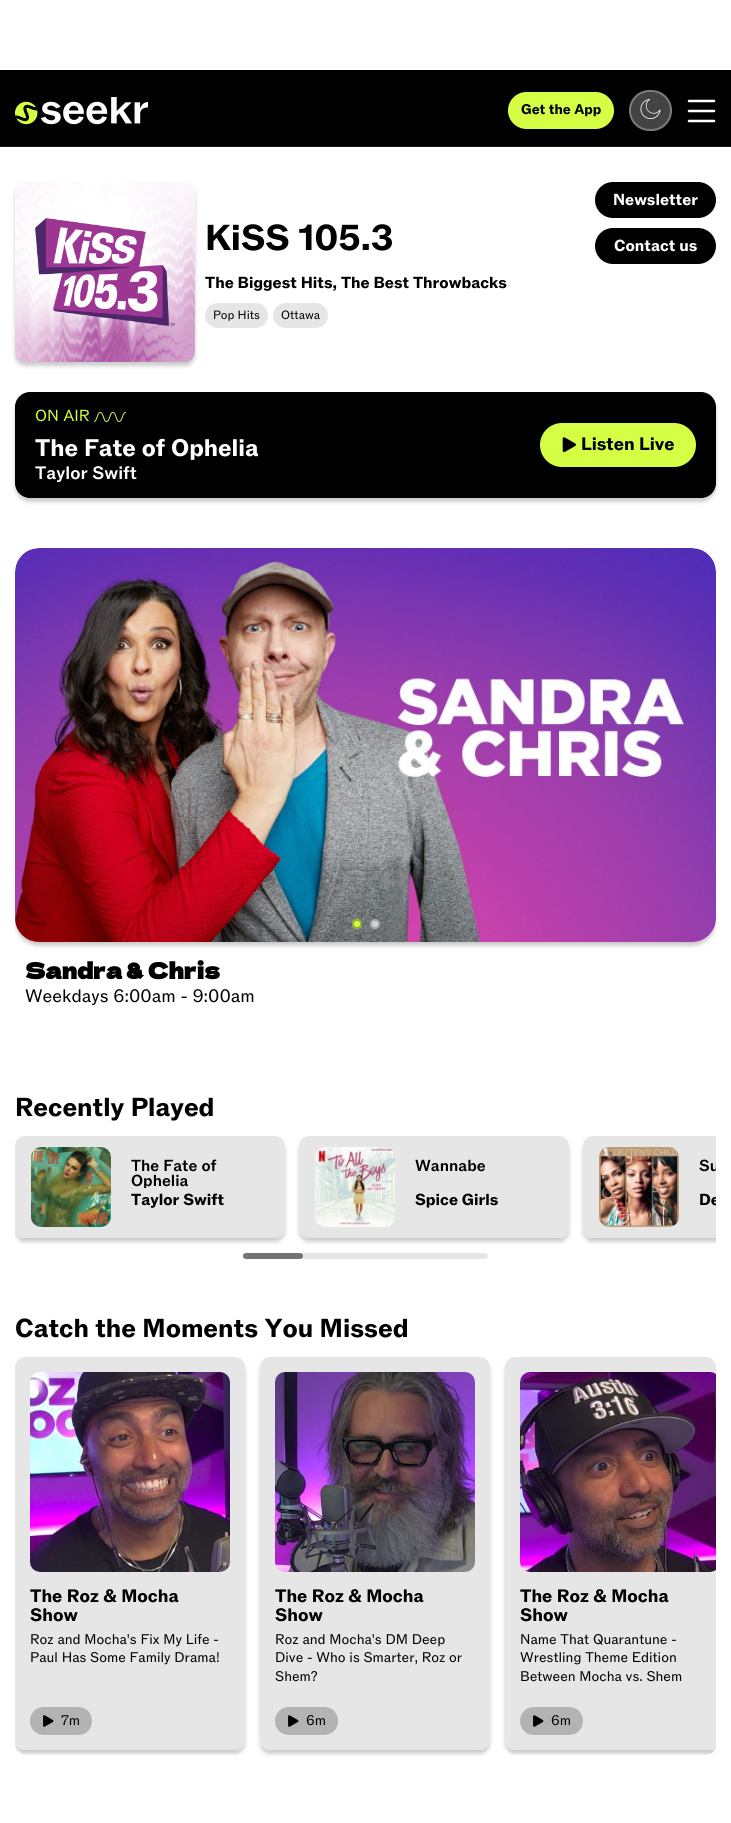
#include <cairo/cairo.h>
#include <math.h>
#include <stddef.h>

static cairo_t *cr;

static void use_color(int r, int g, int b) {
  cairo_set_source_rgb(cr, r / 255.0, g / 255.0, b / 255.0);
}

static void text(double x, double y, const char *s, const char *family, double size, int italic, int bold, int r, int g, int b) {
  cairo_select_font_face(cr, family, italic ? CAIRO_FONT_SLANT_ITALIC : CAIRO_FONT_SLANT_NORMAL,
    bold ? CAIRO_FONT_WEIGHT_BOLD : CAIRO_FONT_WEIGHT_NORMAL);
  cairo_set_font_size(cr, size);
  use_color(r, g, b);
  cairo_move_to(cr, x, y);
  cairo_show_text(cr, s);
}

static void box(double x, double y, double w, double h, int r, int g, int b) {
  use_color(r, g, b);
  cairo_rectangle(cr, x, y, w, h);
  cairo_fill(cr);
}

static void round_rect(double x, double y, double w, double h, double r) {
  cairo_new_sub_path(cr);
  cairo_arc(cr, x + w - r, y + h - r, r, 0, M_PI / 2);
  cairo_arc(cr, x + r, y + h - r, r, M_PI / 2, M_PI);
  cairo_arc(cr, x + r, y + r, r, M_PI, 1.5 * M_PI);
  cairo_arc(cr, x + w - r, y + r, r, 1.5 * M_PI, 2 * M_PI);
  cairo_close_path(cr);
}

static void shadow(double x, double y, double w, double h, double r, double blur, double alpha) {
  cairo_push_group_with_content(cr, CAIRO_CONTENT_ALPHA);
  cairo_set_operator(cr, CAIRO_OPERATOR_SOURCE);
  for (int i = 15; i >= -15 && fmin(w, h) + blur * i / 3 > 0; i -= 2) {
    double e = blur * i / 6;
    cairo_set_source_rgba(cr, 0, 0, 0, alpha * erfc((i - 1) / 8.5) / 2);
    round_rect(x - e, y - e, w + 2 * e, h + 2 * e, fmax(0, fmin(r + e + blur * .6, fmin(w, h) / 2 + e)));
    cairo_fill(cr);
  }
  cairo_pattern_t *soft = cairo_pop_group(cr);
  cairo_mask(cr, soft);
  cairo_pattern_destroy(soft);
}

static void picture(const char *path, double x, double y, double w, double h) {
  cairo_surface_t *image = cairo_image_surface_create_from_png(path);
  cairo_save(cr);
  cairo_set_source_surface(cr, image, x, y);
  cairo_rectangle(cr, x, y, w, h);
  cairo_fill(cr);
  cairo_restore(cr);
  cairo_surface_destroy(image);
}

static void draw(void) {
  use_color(255, 255, 255);
  cairo_paint(cr);
  box(0, 70, 731, 76, 0, 0, 0);
  box(0, 146, 731, 1, 26, 26, 26);
  picture("img_01.png", 15, 97, 133, 28);
  use_color(212, 255, 69);
  round_rect(508, 92, 106, 37, 18.5);
  cairo_fill(cr);
  use_color(67, 67, 67);
  round_rect(629, 90, 43, 41, 20.5);
  cairo_fill(cr);
  round_rect(630, 91, 41, 39, 19.5);
  cairo_set_source_rgba(cr, 1, 1, 1, 0.3);
  cairo_stroke(cr);
  picture("img_02.png", 640, 99, 21, 20);
  cairo_new_path(cr);
  cairo_move_to(cr, 689, 101);
  cairo_line_to(cr, 714, 101);
  cairo_move_to(cr, 689, 111);
  cairo_line_to(cr, 714, 111);
  cairo_move_to(cr, 689, 121);
  cairo_line_to(cr, 714, 121);
  use_color(255, 255, 255);
  cairo_set_line_width(cr, 2.5);
  cairo_set_line_cap(cr, CAIRO_LINE_CAP_ROUND);
  cairo_stroke(cr);
  use_color(0, 0, 0);
  shadow(15, 186, 180, 180, 10, 2, 0.2);
  picture("img_03.png", 15, 182, 180, 180);
  use_color(230, 230, 230);
  round_rect(205, 303, 63, 25, 12.5);
  cairo_fill(cr);
  round_rect(273, 303, 55, 25, 12.5);
  cairo_fill(cr);
  use_color(0, 0, 0);
  round_rect(595, 182, 121, 36, 18);
  cairo_fill(cr);
  round_rect(595, 228, 121, 36, 18);
  cairo_fill(cr);
  use_color(0, 0, 0);
  shadow(15, 396, 701, 106, 15, 2, 0.2);
  use_color(0, 0, 0);
  round_rect(15, 392, 701, 106, 15);
  cairo_fill(cr);
  picture("img_04.png", 94, 412, 32, 10);
  use_color(212, 255, 69);
  round_rect(540, 423, 156, 44, 22);
  cairo_fill(cr);
  picture("img_05.png", 562, 437, 14, 16);
  cairo_save(cr);
  round_rect(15, 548, 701, 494, 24);
  cairo_clip(cr);
  use_color(0, 0, 0);
  shadow(15, 552, 701, 394, 24, 2, 0.2);
  cairo_restore(cr);
  picture("img_06.png", 15, 548, 701, 394);
  cairo_arc(cr, 357, 924, 5, 0, 2 * M_PI);
  cairo_fill(cr);
  cairo_arc(cr, 357, 924, 4, 0, 2 * M_PI);
  cairo_set_source_rgba(cr, 0, 0, 0, 0.3);
  cairo_set_line_width(cr, 2);
  cairo_set_line_cap(cr, CAIRO_LINE_CAP_BUTT);
  cairo_stroke(cr);
  cairo_set_source_rgba(cr, 1, 1, 1, 0.7);
  cairo_arc(cr, 375, 924, 5, 0, 2 * M_PI);
  cairo_fill(cr);
  cairo_arc(cr, 375, 924, 4, 0, 2 * M_PI);
  cairo_set_source_rgba(cr, 0, 0, 0, 0.21);
  cairo_stroke(cr);
  cairo_save(cr);
  cairo_rectangle(cr, 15, 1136, 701, 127);
  cairo_clip(cr);
  cairo_set_fill_rule(cr, CAIRO_FILL_RULE_EVEN_ODD);
  cairo_new_path(cr);
  cairo_move_to(cr, 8, 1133);
  cairo_line_to(cr, 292, 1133);
  cairo_line_to(cr, 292, 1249);
  cairo_line_to(cr, 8, 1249);
  cairo_close_path(cr);
  cairo_move_to(cr, 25, 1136);
  cairo_line_to(cr, 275, 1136);
  cairo_curve_to(cr, 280.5, 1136, 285, 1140.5, 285, 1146);
  cairo_line_to(cr, 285, 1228);
  cairo_curve_to(cr, 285, 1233.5, 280.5, 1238, 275, 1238);
  cairo_line_to(cr, 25, 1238);
  cairo_curve_to(cr, 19.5, 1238, 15, 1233.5, 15, 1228);
  cairo_line_to(cr, 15, 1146);
  cairo_curve_to(cr, 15, 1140.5, 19.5, 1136, 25, 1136);
  cairo_close_path(cr);
  cairo_clip(cr);
  use_color(0, 0, 0);
  shadow(15, 1140, 270, 102, 10, 2, 0.2);
  cairo_restore(cr);
  cairo_set_source_rgba(cr, 0, 0, 0, 0.1);
  round_rect(15, 1136, 270, 102, 10);
  cairo_fill(cr);
  picture("img_07.png", 31, 1147, 80, 80);
  cairo_save(cr);
  cairo_set_fill_rule(cr, CAIRO_FILL_RULE_EVEN_ODD);
  cairo_new_path(cr);
  cairo_move_to(cr, 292, 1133);
  cairo_line_to(cr, 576, 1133);
  cairo_line_to(cr, 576, 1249);
  cairo_line_to(cr, 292, 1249);
  cairo_close_path(cr);
  cairo_move_to(cr, 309, 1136);
  cairo_line_to(cr, 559, 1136);
  cairo_curve_to(cr, 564.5, 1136, 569, 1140.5, 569, 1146);
  cairo_line_to(cr, 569, 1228);
  cairo_curve_to(cr, 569, 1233.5, 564.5, 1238, 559, 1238);
  cairo_line_to(cr, 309, 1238);
  cairo_curve_to(cr, 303.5, 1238, 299, 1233.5, 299, 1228);
  cairo_line_to(cr, 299, 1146);
  cairo_curve_to(cr, 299, 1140.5, 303.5, 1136, 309, 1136);
  cairo_close_path(cr);
  cairo_clip(cr);
  use_color(0, 0, 0);
  shadow(299, 1140, 270, 102, 10, 2, 0.2);
  cairo_restore(cr);
  round_rect(299, 1136, 270, 102, 10);
  cairo_fill(cr);
  picture("img_08.png", 315, 1147, 80, 80);
  cairo_save(cr);
  cairo_rectangle(cr, 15, 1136, 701, 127);
  cairo_clip(cr);
  cairo_set_fill_rule(cr, CAIRO_FILL_RULE_EVEN_ODD);
  cairo_new_path(cr);
  cairo_move_to(cr, 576, 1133);
  cairo_line_to(cr, 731, 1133);
  cairo_line_to(cr, 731, 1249);
  cairo_line_to(cr, 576, 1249);
  cairo_close_path(cr);
  cairo_move_to(cr, 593, 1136);
  cairo_line_to(cr, 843, 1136);
  cairo_curve_to(cr, 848.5, 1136, 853, 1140.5, 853, 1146);
  cairo_line_to(cr, 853, 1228);
  cairo_curve_to(cr, 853, 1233.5, 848.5, 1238, 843, 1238);
  cairo_line_to(cr, 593, 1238);
  cairo_curve_to(cr, 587.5, 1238, 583, 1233.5, 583, 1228);
  cairo_line_to(cr, 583, 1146);
  cairo_curve_to(cr, 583, 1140.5, 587.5, 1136, 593, 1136);
  cairo_close_path(cr);
  cairo_clip(cr);
  use_color(0, 0, 0);
  shadow(583, 1140, 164, 102, 10, 2, 0.2);
  cairo_restore(cr);
  cairo_new_path(cr);
  cairo_move_to(cr, 593, 1136);
  cairo_line_to(cr, 716, 1136);
  cairo_line_to(cr, 716, 1238);
  cairo_line_to(cr, 593, 1238);
  cairo_curve_to(cr, 587.5, 1238, 583, 1233.5, 583, 1228);
  cairo_line_to(cr, 583, 1146);
  cairo_curve_to(cr, 583, 1140.5, 587.5, 1136, 593, 1136);
  cairo_close_path(cr);
  cairo_fill(cr);
  picture("img_09.png", 599, 1147, 80, 80);
  use_color(230, 230, 230);
  round_rect(243, 1253, 245, 6, 3);
  cairo_fill(cr);
  cairo_set_source_rgba(cr, 0, 0, 0, 0.5);
  round_rect(243, 1253, 60, 6, 3);
  cairo_fill(cr);
  cairo_save(cr);
  round_rect(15, 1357, 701, 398, 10);
  cairo_clip(cr);
  cairo_set_fill_rule(cr, CAIRO_FILL_RULE_EVEN_ODD);
  cairo_new_path(cr);
  cairo_move_to(cr, 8, 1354);
  cairo_line_to(cr, 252, 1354);
  cairo_line_to(cr, 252, 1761);
  cairo_line_to(cr, 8, 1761);
  cairo_close_path(cr);
  cairo_move_to(cr, 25, 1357);
  cairo_line_to(cr, 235, 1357);
  cairo_curve_to(cr, 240.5, 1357, 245, 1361.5, 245, 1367);
  cairo_line_to(cr, 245, 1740);
  cairo_curve_to(cr, 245, 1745.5, 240.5, 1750, 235, 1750);
  cairo_line_to(cr, 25, 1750);
  cairo_curve_to(cr, 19.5, 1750, 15, 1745.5, 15, 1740);
  cairo_line_to(cr, 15, 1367);
  cairo_curve_to(cr, 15, 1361.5, 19.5, 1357, 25, 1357);
  cairo_close_path(cr);
  cairo_clip(cr);
  use_color(0, 0, 0);
  shadow(15, 1361, 230, 393, 10, 2, 0.2);
  cairo_restore(cr);
  cairo_set_source_rgba(cr, 0, 0, 0, 0.1);
  round_rect(15, 1357, 230, 393, 10);
  cairo_fill(cr);
  picture("img_10.png", 30, 1372, 200, 200);
  use_color(255, 255, 255);
  round_rect(30, 1707, 62, 28, 14);
  cairo_fill(cr);
  cairo_set_source_rgba(cr, 0, 0, 0, 0.3);
  cairo_new_path(cr);
  cairo_move_to(cr, 44, 1707);
  cairo_line_to(cr, 78, 1707);
  cairo_curve_to(cr, 86, 1707, 92, 1713, 92, 1721);
  cairo_curve_to(cr, 92, 1729, 86, 1735, 78, 1735);
  cairo_line_to(cr, 44, 1735);
  cairo_curve_to(cr, 36, 1735, 30, 1729, 30, 1721);
  cairo_curve_to(cr, 30, 1713, 36, 1707, 44, 1707);
  cairo_close_path(cr);
  cairo_fill(cr);
  picture("img_11.png", 43, 1715, 11, 12);
  cairo_save(cr);
  cairo_set_fill_rule(cr, CAIRO_FILL_RULE_EVEN_ODD);
  cairo_new_path(cr);
  cairo_move_to(cr, 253, 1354);
  cairo_line_to(cr, 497, 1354);
  cairo_line_to(cr, 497, 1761);
  cairo_line_to(cr, 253, 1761);
  cairo_close_path(cr);
  cairo_move_to(cr, 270, 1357);
  cairo_line_to(cr, 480, 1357);
  cairo_curve_to(cr, 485.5, 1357, 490, 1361.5, 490, 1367);
  cairo_line_to(cr, 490, 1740);
  cairo_curve_to(cr, 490, 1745.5, 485.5, 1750, 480, 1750);
  cairo_line_to(cr, 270, 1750);
  cairo_curve_to(cr, 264.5, 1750, 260, 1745.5, 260, 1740);
  cairo_line_to(cr, 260, 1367);
  cairo_curve_to(cr, 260, 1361.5, 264.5, 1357, 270, 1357);
  cairo_close_path(cr);
  cairo_clip(cr);
  use_color(0, 0, 0);
  shadow(260, 1361, 230, 393, 10, 2, 0.2);
  cairo_restore(cr);
  cairo_set_source_rgba(cr, 0, 0, 0, 0.1);
  round_rect(260, 1357, 230, 393, 10);
  cairo_fill(cr);
  picture("img_12.png", 275, 1372, 200, 200);
  use_color(255, 255, 255);
  round_rect(275, 1707, 63, 28, 14);
  cairo_fill(cr);
  cairo_set_source_rgba(cr, 0, 0, 0, 0.3);
  cairo_new_path(cr);
  cairo_move_to(cr, 289, 1707);
  cairo_line_to(cr, 324, 1707);
  cairo_curve_to(cr, 332, 1707, 338, 1713, 338, 1721);
  cairo_curve_to(cr, 338, 1729, 332, 1735, 324, 1735);
  cairo_line_to(cr, 289, 1735);
  cairo_curve_to(cr, 281, 1735, 275, 1729, 275, 1721);
  cairo_curve_to(cr, 275, 1713, 281, 1707, 289, 1707);
  cairo_close_path(cr);
  cairo_fill(cr);
  picture("img_11.png", 288, 1715, 11, 12);
  cairo_save(cr);
  round_rect(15, 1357, 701, 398, 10);
  cairo_clip(cr);
  cairo_set_fill_rule(cr, CAIRO_FILL_RULE_EVEN_ODD);
  cairo_new_path(cr);
  cairo_move_to(cr, 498, 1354);
  cairo_line_to(cr, 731, 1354);
  cairo_line_to(cr, 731, 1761);
  cairo_line_to(cr, 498, 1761);
  cairo_close_path(cr);
  cairo_move_to(cr, 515, 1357);
  cairo_line_to(cr, 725, 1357);
  cairo_curve_to(cr, 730.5, 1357, 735, 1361.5, 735, 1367);
  cairo_line_to(cr, 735, 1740);
  cairo_curve_to(cr, 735, 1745.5, 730.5, 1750, 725, 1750);
  cairo_line_to(cr, 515, 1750);
  cairo_curve_to(cr, 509.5, 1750, 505, 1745.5, 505, 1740);
  cairo_line_to(cr, 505, 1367);
  cairo_curve_to(cr, 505, 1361.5, 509.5, 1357, 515, 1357);
  cairo_close_path(cr);
  cairo_clip(cr);
  use_color(0, 0, 0);
  shadow(505, 1361, 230, 393, 10, 2, 0.2);
  cairo_restore(cr);
  cairo_set_source_rgba(cr, 0, 0, 0, 0.1);
  cairo_new_path(cr);
  cairo_move_to(cr, 515, 1357);
  cairo_line_to(cr, 706, 1357);
  cairo_curve_to(cr, 711.5, 1357, 716, 1361.5, 716, 1367);
  cairo_line_to(cr, 716, 1750);
  cairo_line_to(cr, 515, 1750);
  cairo_curve_to(cr, 509.5, 1750, 505, 1745.5, 505, 1740);
  cairo_line_to(cr, 505, 1367);
  cairo_curve_to(cr, 505, 1361.5, 509.5, 1357, 515, 1357);
  cairo_close_path(cr);
  cairo_fill(cr);
  picture("img_13.png", 520, 1372, 196, 200);
  use_color(255, 255, 255);
  round_rect(520, 1707, 63, 28, 14);
  cairo_fill(cr);
  cairo_set_source_rgba(cr, 0, 0, 0, 0.3);
  cairo_new_path(cr);
  cairo_move_to(cr, 534, 1707);
  cairo_line_to(cr, 569, 1707);
  cairo_curve_to(cr, 577, 1707, 583, 1713, 583, 1721);
  cairo_curve_to(cr, 583, 1729, 577, 1735, 569, 1735);
  cairo_line_to(cr, 534, 1735);
  cairo_curve_to(cr, 526, 1735, 520, 1729, 520, 1721);
  cairo_curve_to(cr, 520, 1713, 526, 1707, 534, 1707);
  cairo_close_path(cr);
  cairo_fill(cr);
  picture("img_11.png", 533, 1715, 11, 12);
  text(521, 114, "Get the App", "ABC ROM", 14, 0, 1, 0, 0, 0);
  text(205, 250, "KiSS 105.3", "ABC ROM", 36, 0, 1, 0, 0, 0);
  text(205, 288, "The Biggest Hits, The Best Throwbacks", "ABC ROM", 16, 0, 1, 0, 0, 0);
  text(213, 319, "Pop Hits", "ABC ROM", 12, 0, 0, 0, 0, 0);
  text(281, 319, "Ottawa", "ABC ROM", 12, 0, 0, 0, 0, 0);
  text(613, 205, "Newsletter", "ABC ROM", 16, 0, 1, 255, 255, 255);
  text(614, 251, "Contact us", "ABC ROM", 16, 0, 1, 255, 255, 255);
  text(35, 421, "ON AIR", "ABC ROM", 16, 0, 0, 212, 255, 69);
  text(35, 456, "The Fate of Ophelia", "ABC ROM", 24, 0, 1, 255, 255, 255);
  text(35, 479, "Taylor Swift", "ABC ROM Medium", 18, 0, 0, 255, 255, 255);
  text(581, 450, "Listen Live", "ABC ROM", 18, 0, 1, 0, 0, 0);
  text(25, 979, "Sandra & Chris", "Dela Gothic One", 22, 0, 1, 0, 0, 0);
  text(25, 1002, "Weekdays 6:00am - 9:00am", "ABC ROM", 18, 0, 0, 0, 0, 0);
  text(15, 1116, "Recently Played", "ABC ROM", 26, 0, 1, 0, 0, 0);
  text(131, 1171, "The Fate of", "ABC ROM Medium", 16, 0, 0, 0, 0, 0);
  cairo_save(cr);
  cairo_rectangle(cr, 131, 1159, 138, 29);
  cairo_clip(cr);
  text(131, 1186, "Ophelia", "ABC ROM Medium", 16, 0, 0, 0, 0, 0);
  cairo_restore(cr);
  text(131, 1205, "Taylor Swift", "ABC ROM", 16, 0, 1, 0, 0, 0);
  text(415, 1171, "Wannabe", "ABC ROM Medium", 16, 0, 0, 0, 0, 0);
  text(415, 1205, "Spice Girls", "ABC ROM", 16, 0, 1, 0, 0, 0);
  cairo_save(cr);
  cairo_rectangle(cr, 699, 1159, 17, 29);
  cairo_clip(cr);
  text(699, 1171, "Su", "ABC ROM Medium", 16, 0, 0, 0, 0, 0);
  cairo_restore(cr);
  cairo_save(cr);
  cairo_rectangle(cr, 699, 1188, 17, 26);
  cairo_clip(cr);
  text(699, 1205, "De", "ABC ROM", 16, 0, 1, 0, 0, 0);
  cairo_restore(cr);
  text(15, 1337, "Catch the Moments You Missed", "ABC ROM", 26, 0, 1, 0, 0, 0);
  text(30, 1602, "The Roz & Mocha", "ABC ROM", 18, 0, 1, 0, 0, 0);
  text(30, 1621, "Show", "ABC ROM", 18, 0, 1, 0, 0, 0);
  text(30, 1644, "Roz and Mocha's Fix My Life -", "ABC ROM", 14, 0, 0, 0, 0, 0);
  text(30, 1662, "Paul Has Some Family Drama!", "ABC ROM", 14, 0, 0, 0, 0, 0);
  text(61, 1725, "7m", "ABC ROM", 14, 0, 0, 0, 0, 0);
  text(275, 1602, "The Roz & Mocha", "ABC ROM", 18, 0, 1, 0, 0, 0);
  text(275, 1621, "Show", "ABC ROM", 18, 0, 1, 0, 0, 0);
  text(275, 1644, "Roz and Mocha's DM Deep", "ABC ROM", 14, 0, 0, 0, 0, 0);
  text(275, 1662, "Dive - Who is Smarter, Roz or", "ABC ROM", 14, 0, 0, 0, 0, 0);
  text(275, 1681, "Shem?", "ABC ROM", 14, 0, 0, 0, 0, 0);
  text(306, 1725, "6m", "ABC ROM", 14, 0, 0, 0, 0, 0);
  text(520, 1602, "The Roz & Mocha", "ABC ROM", 18, 0, 1, 0, 0, 0);
  text(520, 1621, "Show", "ABC ROM", 18, 0, 1, 0, 0, 0);
  text(520, 1644, "Name That Quarantune -", "ABC ROM", 14, 0, 0, 0, 0, 0);
  text(520, 1662, "Wrestling Theme Edition", "ABC ROM", 14, 0, 0, 0, 0, 0);
  text(520, 1681, "Between Mocha vs. Shem", "ABC ROM", 14, 0, 0, 0, 0, 0);
  text(551, 1725, "6m", "ABC ROM", 14, 0, 0, 0, 0, 0);
}

int main(void) {
  cairo_surface_t *surface = cairo_image_surface_create(CAIRO_FORMAT_RGB24, 731, 1823);
  cr = cairo_create(surface);
  cairo_font_options_t *options = cairo_font_options_create();
  cairo_font_options_set_hint_metrics(options, CAIRO_HINT_METRICS_OFF);
  cairo_font_options_set_hint_style(options, CAIRO_HINT_STYLE_NONE);
  cairo_set_font_options(cr, options);
  cairo_set_miter_limit(cr, 4);
  draw();
  cairo_surface_write_to_png(surface, "out.png");
  cairo_font_options_destroy(options);
  cairo_destroy(cr);
  cairo_surface_destroy(surface);
  return 0;
}
